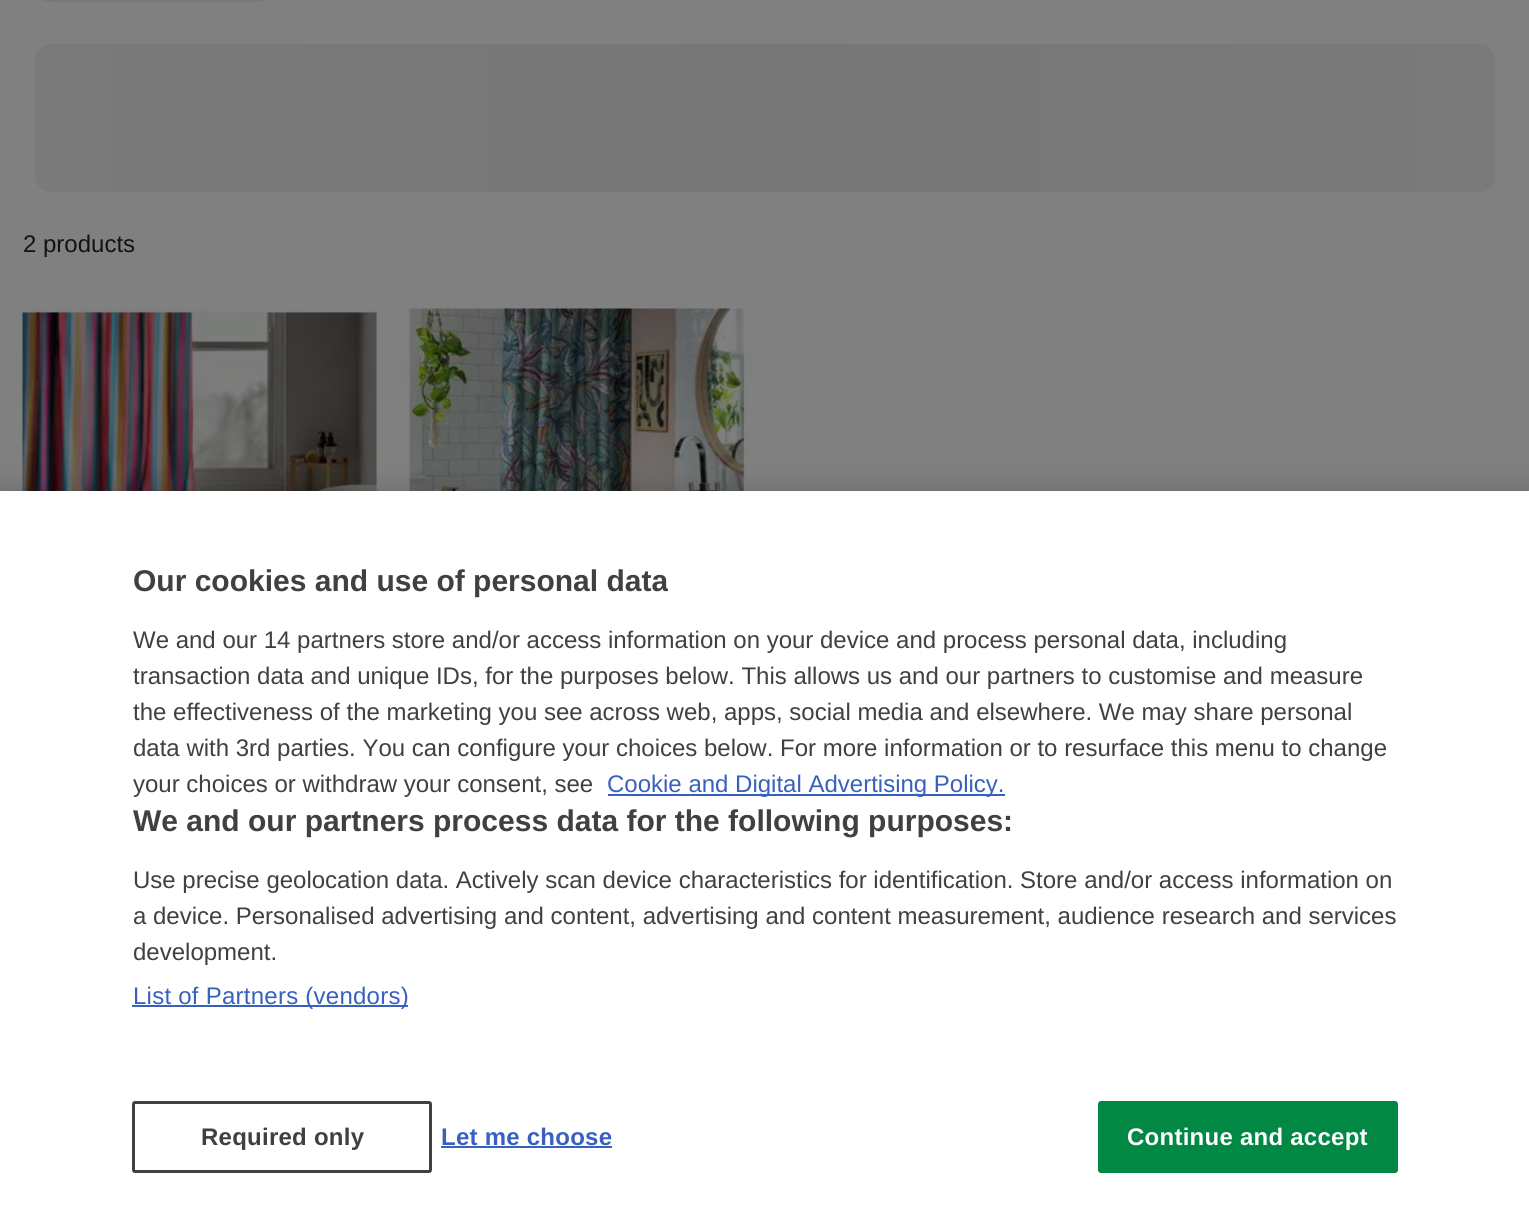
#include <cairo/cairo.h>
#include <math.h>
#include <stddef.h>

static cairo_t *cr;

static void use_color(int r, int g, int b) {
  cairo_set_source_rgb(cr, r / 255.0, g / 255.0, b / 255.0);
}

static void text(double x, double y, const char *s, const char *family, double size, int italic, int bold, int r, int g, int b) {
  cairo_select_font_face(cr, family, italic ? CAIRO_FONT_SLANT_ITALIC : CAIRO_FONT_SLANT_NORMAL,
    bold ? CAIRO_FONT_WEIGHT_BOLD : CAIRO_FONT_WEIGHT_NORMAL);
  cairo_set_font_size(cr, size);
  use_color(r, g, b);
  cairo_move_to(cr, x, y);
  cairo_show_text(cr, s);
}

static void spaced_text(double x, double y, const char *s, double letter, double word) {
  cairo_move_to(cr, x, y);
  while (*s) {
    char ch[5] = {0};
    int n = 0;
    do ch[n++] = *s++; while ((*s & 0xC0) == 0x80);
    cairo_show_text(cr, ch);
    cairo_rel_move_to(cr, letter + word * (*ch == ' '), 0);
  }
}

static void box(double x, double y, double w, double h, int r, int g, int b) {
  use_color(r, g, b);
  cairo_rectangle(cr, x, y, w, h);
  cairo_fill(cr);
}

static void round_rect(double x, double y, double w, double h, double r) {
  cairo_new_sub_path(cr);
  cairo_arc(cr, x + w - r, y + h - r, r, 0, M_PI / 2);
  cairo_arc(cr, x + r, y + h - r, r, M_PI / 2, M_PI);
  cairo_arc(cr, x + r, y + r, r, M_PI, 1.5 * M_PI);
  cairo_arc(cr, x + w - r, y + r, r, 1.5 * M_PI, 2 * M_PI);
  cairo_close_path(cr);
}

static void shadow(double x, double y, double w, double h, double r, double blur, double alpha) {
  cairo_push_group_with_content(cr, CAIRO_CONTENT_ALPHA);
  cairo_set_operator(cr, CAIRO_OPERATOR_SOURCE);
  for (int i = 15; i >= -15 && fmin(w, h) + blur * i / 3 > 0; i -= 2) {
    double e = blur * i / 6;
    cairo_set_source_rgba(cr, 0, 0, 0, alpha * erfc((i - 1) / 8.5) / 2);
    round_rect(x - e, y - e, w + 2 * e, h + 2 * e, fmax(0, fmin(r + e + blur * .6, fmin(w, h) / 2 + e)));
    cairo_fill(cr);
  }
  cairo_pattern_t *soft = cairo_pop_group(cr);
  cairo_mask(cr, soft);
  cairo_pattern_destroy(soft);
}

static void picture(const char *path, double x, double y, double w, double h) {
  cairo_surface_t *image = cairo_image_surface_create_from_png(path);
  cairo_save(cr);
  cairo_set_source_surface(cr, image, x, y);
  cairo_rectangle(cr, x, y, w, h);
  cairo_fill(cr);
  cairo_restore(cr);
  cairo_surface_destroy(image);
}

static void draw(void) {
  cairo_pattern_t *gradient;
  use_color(128, 128, 128);
  cairo_paint(cr);
  use_color(121, 121, 121);
  round_rect(23, -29, 262, 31, 28.5);
  cairo_fill(cr);
  gradient = cairo_pattern_create_linear(35, 44, 1495, 44);
  cairo_pattern_add_color_stop_rgba(gradient, 0, 0.478, 0.478, 0.478, 1);
  cairo_pattern_add_color_stop_rgba(gradient, 0.5, 0.463, 0.463, 0.463, 1);
  cairo_pattern_add_color_stop_rgba(gradient, 1, 0.478, 0.478, 0.478, 1);
  cairo_set_source(cr, gradient);
  cairo_pattern_destroy(gradient);
  round_rect(35, 44, 1460, 148, 16);
  cairo_fill(cr);
  box(376, 309, 1, 182, 122, 122, 122);
  picture("img_01.png", 22, 308, 355, 183);
  picture("img_02.png", 401, 308, 352, 183);
  use_color(0, 0, 0);
  shadow(0, 491, 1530, 730, 0, 13.5, 0.2);
  box(0, 491, 1529, 730, 255, 255, 255);
  box(608, 794, 397, 2, 56, 96, 190);
  box(132, 1005, 276, 2, 56, 96, 190);
  round_rect(133.5, 1102.5, 297, 69, 1.5);
  use_color(64, 64, 64);
  cairo_set_line_width(cr, 3);
  cairo_stroke(cr);
  box(441, 1146, 171, 2, 56, 96, 190);
  use_color(0, 136, 68);
  round_rect(1099.5, 1102.5, 297, 69, 1.5);
  cairo_fill_preserve(cr);
  cairo_stroke(cr);
  text(23, 252, "2 products", "Liberation Sans", 24, 0, 0, 19, 19, 19);
  text(133, 591, "Our cookies and use of personal data", "Liberation Sans", 30, 0, 1, 64, 64, 64);
  text(133, 648, "We and our 14 partners store and/or access information on your device and process personal data, including", "Liberation Sans", 24, 0, 0, 64, 64, 64);
  text(133, 684, "transaction data and unique IDs, for the purposes below. This allows us and our partners to customise and measure", "Liberation Sans", 24, 0, 0, 64, 64, 64);
  text(133, 720, "the effectiveness of the marketing you see across web, apps, social media and elsewhere. We may share personal", "Liberation Sans", 24, 0, 0, 64, 64, 64);
  text(133, 756, "data with 3rd parties. You can configure your choices below. For more information or to resurface this menu to change", "Liberation Sans", 24, 0, 0, 64, 64, 64);
  text(133, 792, "your choices or withdraw your consent, see", "Liberation Sans", 24, 0, 0, 64, 64, 64);
  text(607, 792, "Cookie and Digital Advertising Policy.", "Liberation Sans", 24, 0, 0, 56, 96, 190);
  text(133, 831, "We and our partners process data for the following purposes:", "Liberation Sans", 30, 0, 1, 64, 64, 64);
  text(133, 888, "Use precise geolocation data. Actively scan device characteristics for identification. Store and/or access information on", "Liberation Sans", 24, 0, 0, 64, 64, 64);
  text(133, 924, "a device. Personalised advertising and content, advertising and content measurement, audience research and services", "Liberation Sans", 24, 0, 0, 64, 64, 64);
  text(133, 960, "development.", "Liberation Sans", 24, 0, 0, 64, 64, 64);
  use_color(56, 96, 190);
  spaced_text(133, 1004, "List of Partners (vendors)", 0.25, 0);
  cairo_select_font_face(cr, "Liberation Sans", CAIRO_FONT_SLANT_NORMAL, CAIRO_FONT_WEIGHT_BOLD);
  use_color(64, 64, 64);
  spaced_text(201, 1145, "Required only", 0.25, 0);
  use_color(56, 96, 190);
  spaced_text(441, 1145, "Let me choose", 0.25, 0);
  use_color(255, 255, 255);
  spaced_text(1127, 1145, "Continue and accept", 0.25, 0);
}

int main(void) {
  cairo_surface_t *surface = cairo_image_surface_create(CAIRO_FORMAT_RGB24, 1529, 1221);
  cr = cairo_create(surface);
  cairo_font_options_t *options = cairo_font_options_create();
  cairo_font_options_set_hint_metrics(options, CAIRO_HINT_METRICS_OFF);
  cairo_font_options_set_hint_style(options, CAIRO_HINT_STYLE_NONE);
  cairo_set_font_options(cr, options);
  cairo_set_miter_limit(cr, 4);
  draw();
  cairo_surface_write_to_png(surface, "out.png");
  cairo_font_options_destroy(options);
  cairo_destroy(cr);
  cairo_surface_destroy(surface);
  return 0;
}
